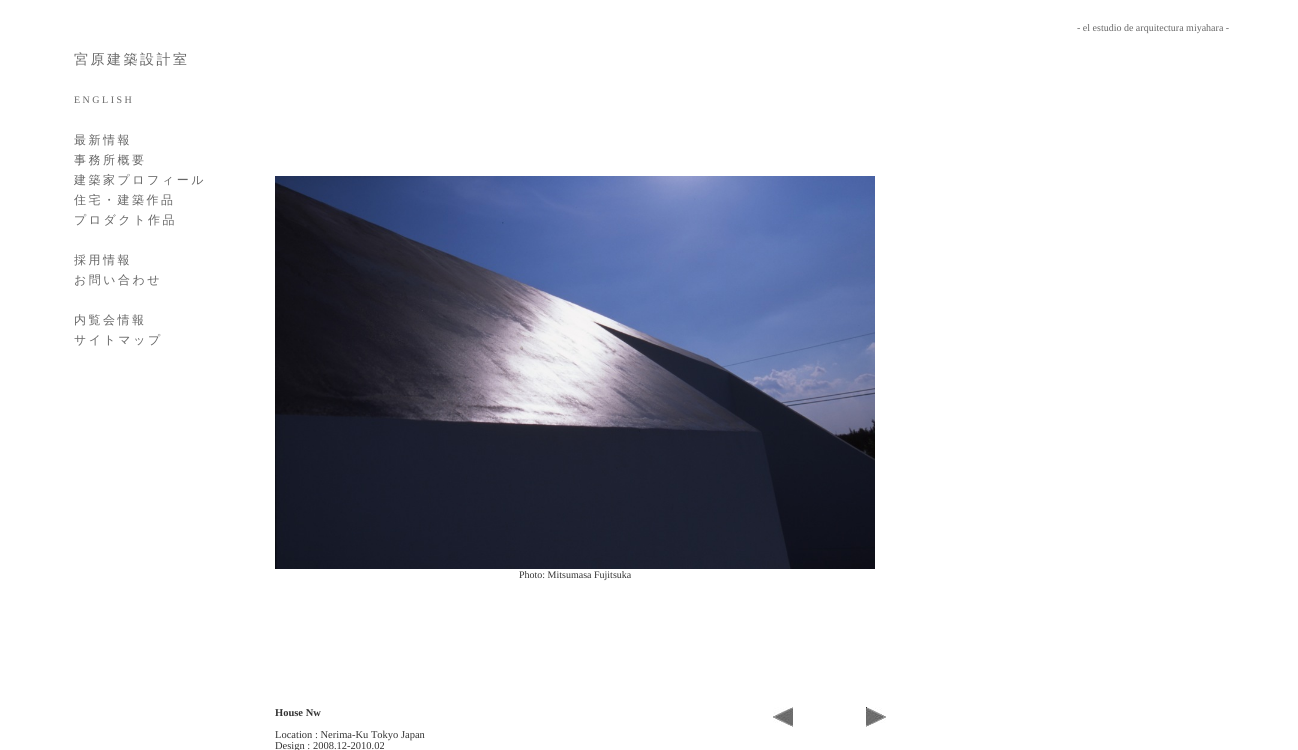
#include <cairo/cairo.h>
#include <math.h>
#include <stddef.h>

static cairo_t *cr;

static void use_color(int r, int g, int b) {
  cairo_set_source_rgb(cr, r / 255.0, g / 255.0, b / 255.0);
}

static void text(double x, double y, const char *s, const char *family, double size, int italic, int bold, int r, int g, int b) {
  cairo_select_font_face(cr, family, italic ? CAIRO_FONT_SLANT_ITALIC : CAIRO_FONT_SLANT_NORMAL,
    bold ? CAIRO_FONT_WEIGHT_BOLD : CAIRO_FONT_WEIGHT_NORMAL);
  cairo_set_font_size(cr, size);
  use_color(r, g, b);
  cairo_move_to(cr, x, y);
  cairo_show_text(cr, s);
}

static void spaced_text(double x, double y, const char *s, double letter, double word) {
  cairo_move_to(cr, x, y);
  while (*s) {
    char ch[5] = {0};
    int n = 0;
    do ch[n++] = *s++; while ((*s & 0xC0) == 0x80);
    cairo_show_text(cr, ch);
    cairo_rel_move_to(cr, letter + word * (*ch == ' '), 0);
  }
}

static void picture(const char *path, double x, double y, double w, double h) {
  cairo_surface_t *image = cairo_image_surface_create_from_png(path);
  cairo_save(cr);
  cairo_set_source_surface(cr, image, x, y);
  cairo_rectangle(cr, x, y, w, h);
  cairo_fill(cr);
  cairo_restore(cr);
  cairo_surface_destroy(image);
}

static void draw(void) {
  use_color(255, 255, 255);
  cairo_paint(cr);
  picture("img_01.png", 275, 176, 600, 393);
  picture("img_02.png", 773, 707, 20, 20);
  picture("img_03.png", 866, 707, 20, 20);
  text(1077, 31, "- el estudio de arquitectura miyahara -", "Liberation Serif", 10, 0, 0, 102, 102, 102);
  cairo_select_font_face(cr, "WenQuanYi Zen Hei Medium", CAIRO_FONT_SLANT_NORMAL, CAIRO_FONT_WEIGHT_NORMAL);
  cairo_set_font_size(cr, 14);
  spaced_text(74, 64, "宮原建築設計室", 2.5, 0);
  cairo_select_font_face(cr, "Liberation Serif", CAIRO_FONT_SLANT_NORMAL, CAIRO_FONT_WEIGHT_NORMAL);
  cairo_set_font_size(cr, 10);
  spaced_text(74, 103, "ENGLISH", 2.5, 0);
  cairo_select_font_face(cr, "WenQuanYi Zen Hei Medium", CAIRO_FONT_SLANT_NORMAL, CAIRO_FONT_WEIGHT_NORMAL);
  cairo_set_font_size(cr, 12);
  spaced_text(74, 144, "最新情報", 2.5, 0);
  spaced_text(74, 164, "事務所概要", 2.5, 0);
  spaced_text(74, 184, "建築家プロフィール", 2.5, 0);
  spaced_text(74, 204, "住宅・建築作品", 2.5, 0);
  spaced_text(74, 224, "プロダクト作品", 2.5, 0);
  spaced_text(74, 264, "採用情報", 2.5, 0);
  spaced_text(74, 284, "お問い合わせ", 2.5, 0);
  spaced_text(74, 324, "内覧会情報", 2.5, 0);
  spaced_text(74, 344, "サイトマップ", 2.5, 0);
  text(519, 578, "Photo: Mitsumasa Fujitsuka", "Liberation Serif", 10, 0, 0, 51, 51, 51);
  text(275, 716, "House Nw", "Liberation Serif", 10.5, 0, 1, 51, 51, 51);
  text(275, 738, "Location : Nerima-Ku Tokyo Japan", "Liberation Serif", 10.5, 0, 0, 51, 51, 51);
  text(275, 749, "Design : 2008.12-2010.02", "Liberation Serif", 10.5, 0, 0, 51, 51, 51);
}

int main(void) {
  cairo_surface_t *surface = cairo_image_surface_create(CAIRO_FORMAT_RGB24, 1298, 750);
  cr = cairo_create(surface);
  cairo_font_options_t *options = cairo_font_options_create();
  cairo_font_options_set_hint_metrics(options, CAIRO_HINT_METRICS_OFF);
  cairo_font_options_set_hint_style(options, CAIRO_HINT_STYLE_NONE);
  cairo_set_font_options(cr, options);
  cairo_set_miter_limit(cr, 4);
  draw();
  cairo_surface_write_to_png(surface, "out.png");
  cairo_font_options_destroy(options);
  cairo_destroy(cr);
  cairo_surface_destroy(surface);
  return 0;
}
